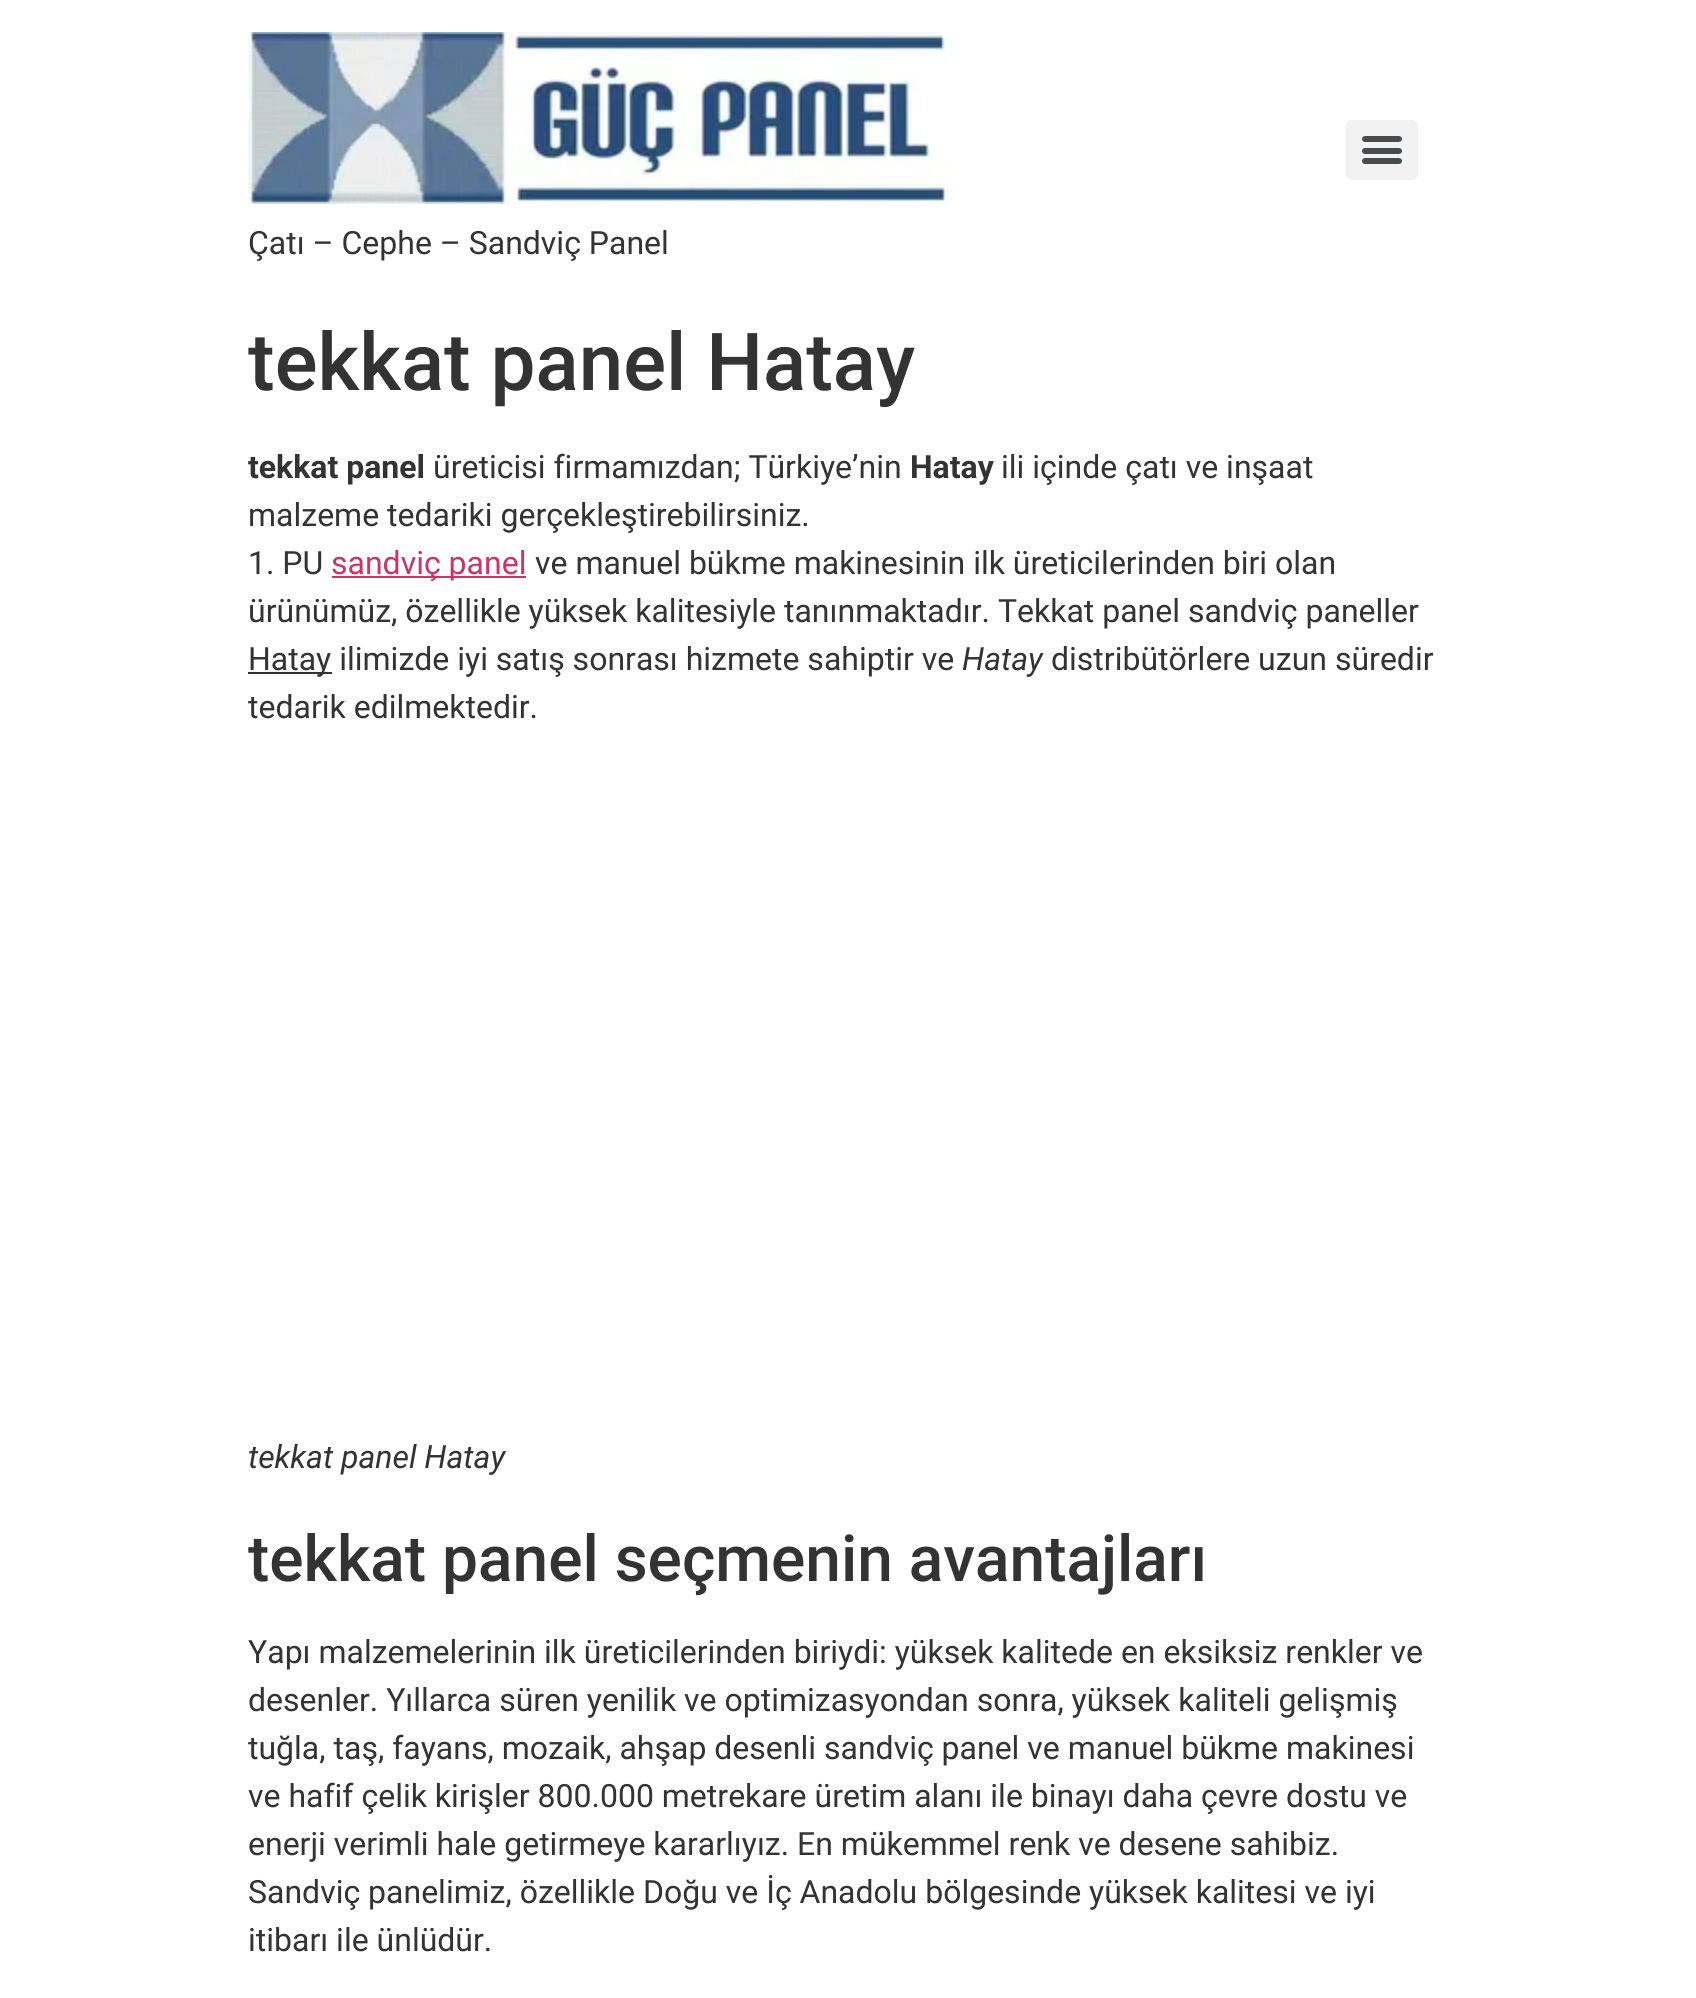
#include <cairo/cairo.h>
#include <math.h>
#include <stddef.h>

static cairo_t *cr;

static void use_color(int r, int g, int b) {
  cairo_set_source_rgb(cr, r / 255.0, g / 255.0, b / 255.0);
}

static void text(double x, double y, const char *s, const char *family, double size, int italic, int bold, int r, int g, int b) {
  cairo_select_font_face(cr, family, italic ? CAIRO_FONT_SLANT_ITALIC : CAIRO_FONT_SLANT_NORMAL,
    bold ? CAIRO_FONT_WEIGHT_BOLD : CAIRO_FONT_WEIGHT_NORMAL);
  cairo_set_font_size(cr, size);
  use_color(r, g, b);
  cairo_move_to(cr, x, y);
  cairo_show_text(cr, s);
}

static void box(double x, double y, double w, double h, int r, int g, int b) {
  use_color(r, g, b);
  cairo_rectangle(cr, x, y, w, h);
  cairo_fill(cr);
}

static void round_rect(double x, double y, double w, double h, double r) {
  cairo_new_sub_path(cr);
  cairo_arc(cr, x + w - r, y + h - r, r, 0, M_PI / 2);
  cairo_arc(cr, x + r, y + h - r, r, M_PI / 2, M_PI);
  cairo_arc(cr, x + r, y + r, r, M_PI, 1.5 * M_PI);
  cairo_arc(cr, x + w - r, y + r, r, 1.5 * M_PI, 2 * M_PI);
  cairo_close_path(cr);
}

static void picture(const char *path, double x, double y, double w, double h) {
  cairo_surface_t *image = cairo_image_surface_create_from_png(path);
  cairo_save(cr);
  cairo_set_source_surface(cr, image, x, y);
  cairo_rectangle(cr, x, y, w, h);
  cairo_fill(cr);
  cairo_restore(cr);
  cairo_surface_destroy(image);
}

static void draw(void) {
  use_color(255, 255, 255);
  cairo_paint(cr);
  use_color(242, 242, 242);
  round_rect(1346, 120, 72, 60, 6);
  cairo_fill(cr);
  use_color(73, 76, 79);
  round_rect(1362, 148, 40, 6, 3);
  cairo_fill(cr);
  round_rect(1362, 136, 40, 6, 3);
  cairo_fill(cr);
  round_rect(1362, 158, 40, 6, 3);
  cairo_fill(cr);
  picture("img_01.png", 248, 32, 700, 172);
  box(332, 576, 194, 2, 204, 51, 102);
  box(248, 672, 84, 2, 51, 51, 51);
  text(248, 254, "Çatı – Cephe – Sandviç Panel", "Roboto", 32, 0, 0, 51, 51, 51);
  text(248, 390, "tekkat panel Hatay", "Roboto Medium", 80, 0, 0, 51, 51, 51);
  text(248, 478, "tekkat panel", "Roboto", 32, 0, 1, 51, 51, 51);
  text(433, 478, "üreticisi firmamızdan; Türkiye’nin", "Roboto", 32, 0, 0, 51, 51, 51);
  text(910, 478, "Hatay", "Roboto", 32, 0, 1, 51, 51, 51);
  text(1001, 478, "ili içinde çatı ve inşaat", "Roboto", 32, 0, 0, 51, 51, 51);
  text(248, 526, "malzeme tedariki gerçekleştirebilirsiniz.", "Roboto", 32, 0, 0, 51, 51, 51);
  text(248, 574, "1. PU", "Roboto", 32, 0, 0, 51, 51, 51);
  text(331, 574, "sandviç panel", "Roboto", 32, 0, 0, 204, 51, 102);
  text(535, 574, "ve manuel bükme makinesinin ilk üreticilerinden biri olan", "Roboto", 32, 0, 0, 51, 51, 51);
  text(248, 622, "ürünümüz, özellikle yüksek kalitesiyle tanınmaktadır. Tekkat panel sandviç paneller", "Roboto", 32, 0, 0, 51, 51, 51);
  text(248, 670, "Hatay ilimizde iyi satış sonrası hizmete sahiptir ve", "Roboto", 32, 0, 0, 51, 51, 51);
  text(962, 670, "Hatay", "Roboto", 32, 1, 0, 51, 51, 51);
  text(1051, 670, "distribütörlere uzun süredir", "Roboto", 32, 0, 0, 51, 51, 51);
  text(248, 718, "tedarik edilmektedir.", "Roboto", 32, 0, 0, 51, 51, 51);
  text(248, 1468, "tekkat panel Hatay", "Roboto", 32, 1, 0, 51, 51, 51);
  text(248, 1581, "tekkat panel seçmenin avantajları", "Roboto Medium", 64, 0, 0, 51, 51, 51);
  text(248, 1663, "Yapı malzemelerinin ilk üreticilerinden biriydi: yüksek kalitede en eksiksiz renkler ve", "Roboto", 32, 0, 0, 51, 51, 51);
  text(248, 1711, "desenler. Yıllarca süren yenilik ve optimizasyondan sonra, yüksek kaliteli gelişmiş", "Roboto", 32, 0, 0, 51, 51, 51);
  text(248, 1759, "tuğla, taş, fayans, mozaik, ahşap desenli sandviç panel ve manuel bükme makinesi", "Roboto", 32, 0, 0, 51, 51, 51);
  text(248, 1807, "ve hafif çelik kirişler 800.000 metrekare üretim alanı ile binayı daha çevre dostu ve", "Roboto", 32, 0, 0, 51, 51, 51);
  text(248, 1855, "enerji verimli hale getirmeye kararlıyız. En mükemmel renk ve desene sahibiz.", "Roboto", 32, 0, 0, 51, 51, 51);
  text(248, 1903, "Sandviç panelimiz, özellikle Doğu ve İç Anadolu bölgesinde yüksek kalitesi ve iyi", "Roboto", 32, 0, 0, 51, 51, 51);
  text(248, 1951, "itibarı ile ünlüdür.", "Roboto", 32, 0, 0, 51, 51, 51);
}

int main(void) {
  cairo_surface_t *surface = cairo_image_surface_create(CAIRO_FORMAT_RGB24, 1696, 1998);
  cr = cairo_create(surface);
  cairo_font_options_t *options = cairo_font_options_create();
  cairo_font_options_set_hint_metrics(options, CAIRO_HINT_METRICS_OFF);
  cairo_font_options_set_hint_style(options, CAIRO_HINT_STYLE_NONE);
  cairo_set_font_options(cr, options);
  cairo_set_miter_limit(cr, 4);
  draw();
  cairo_surface_write_to_png(surface, "out.png");
  cairo_font_options_destroy(options);
  cairo_destroy(cr);
  cairo_surface_destroy(surface);
  return 0;
}
